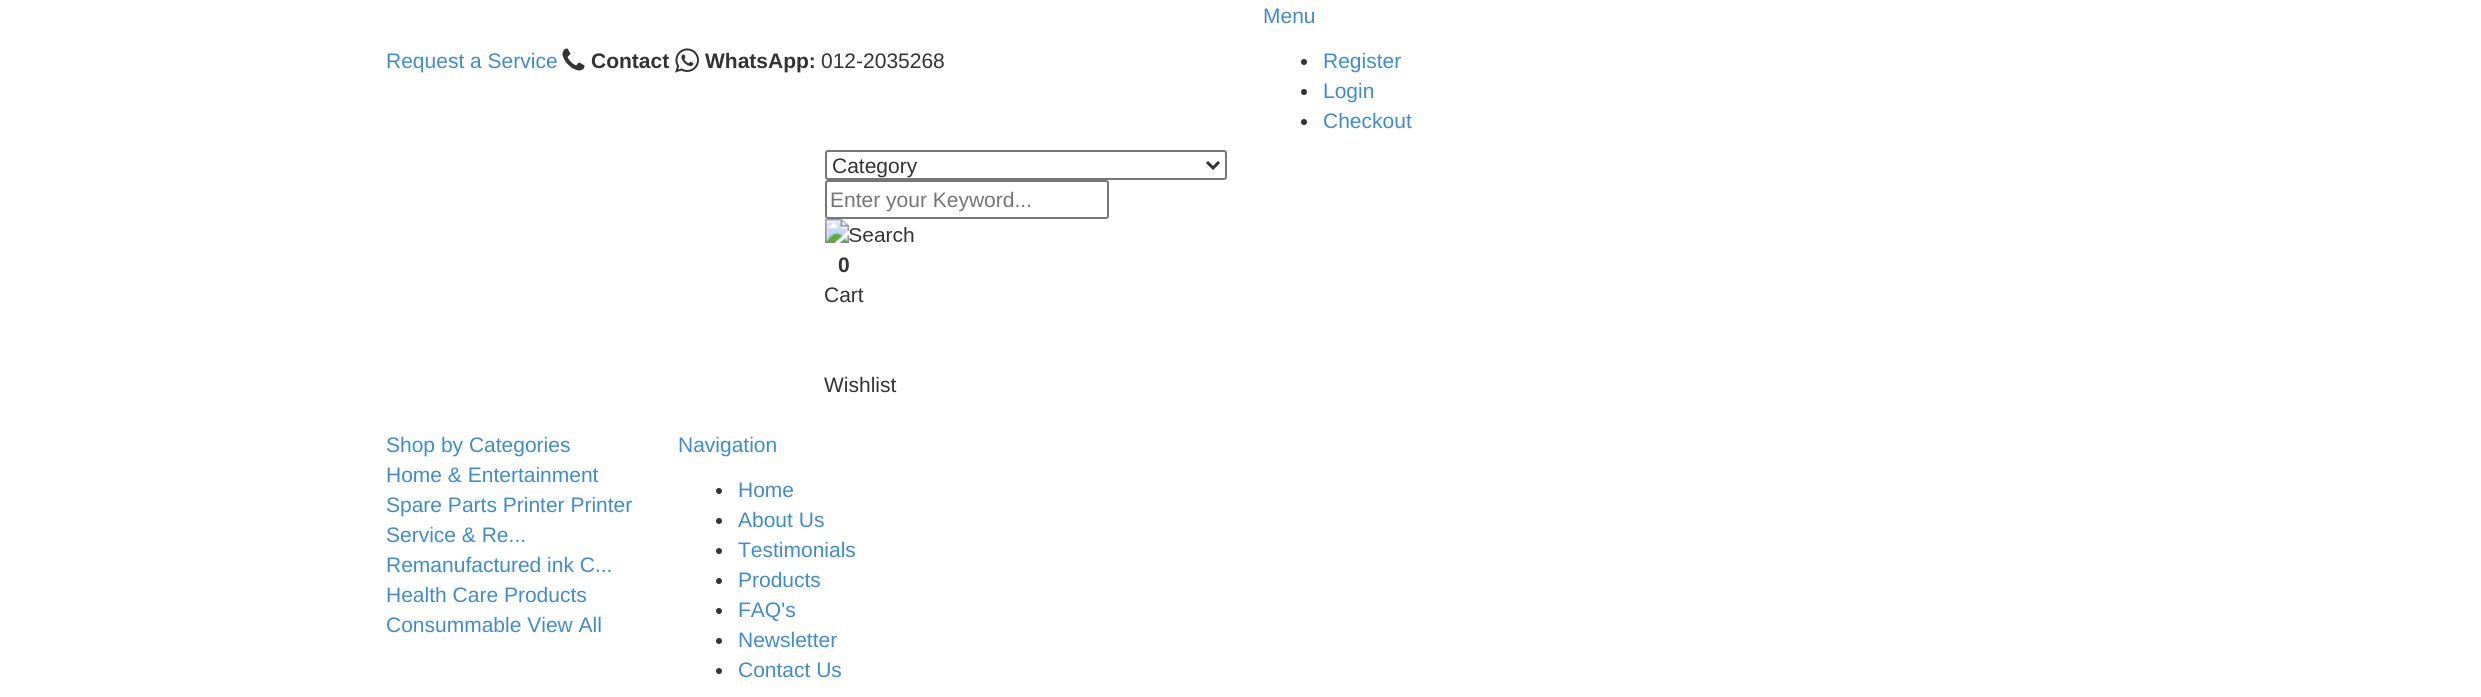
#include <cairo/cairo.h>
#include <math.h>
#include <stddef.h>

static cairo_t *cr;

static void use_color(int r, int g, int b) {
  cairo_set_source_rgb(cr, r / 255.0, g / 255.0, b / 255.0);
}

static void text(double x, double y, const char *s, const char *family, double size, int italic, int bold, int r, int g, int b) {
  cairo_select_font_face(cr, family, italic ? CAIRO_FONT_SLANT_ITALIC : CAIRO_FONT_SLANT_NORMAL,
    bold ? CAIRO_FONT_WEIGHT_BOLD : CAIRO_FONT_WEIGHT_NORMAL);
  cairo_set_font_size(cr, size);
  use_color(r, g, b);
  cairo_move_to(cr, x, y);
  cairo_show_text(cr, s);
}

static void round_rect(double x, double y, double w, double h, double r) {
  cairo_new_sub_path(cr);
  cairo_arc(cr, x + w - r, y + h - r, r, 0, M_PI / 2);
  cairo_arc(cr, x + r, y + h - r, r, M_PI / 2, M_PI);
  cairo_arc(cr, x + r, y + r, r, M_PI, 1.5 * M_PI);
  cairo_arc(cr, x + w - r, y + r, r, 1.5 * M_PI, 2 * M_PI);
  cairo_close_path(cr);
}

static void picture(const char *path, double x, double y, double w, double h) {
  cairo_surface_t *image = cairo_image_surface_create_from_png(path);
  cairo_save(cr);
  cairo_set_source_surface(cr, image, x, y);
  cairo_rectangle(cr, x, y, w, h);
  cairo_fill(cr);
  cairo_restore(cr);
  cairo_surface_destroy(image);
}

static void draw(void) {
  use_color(255, 255, 255);
  cairo_paint(cr);
  picture("img_01.png", 562, 48, 23, 23);
  picture("img_02.png", 675, 48, 24, 25);
  use_color(51, 51, 51);
  cairo_arc(cr, 1304, 62, 3, 0, 2 * M_PI);
  cairo_fill(cr);
  cairo_arc(cr, 1304, 92, 3, 0, 2 * M_PI);
  cairo_fill(cr);
  cairo_arc(cr, 1304, 122, 3, 0, 2 * M_PI);
  cairo_fill(cr);
  round_rect(826, 151, 400, 28, 2);
  use_color(118, 118, 118);
  cairo_stroke(cr);
  cairo_new_path(cr);
  cairo_move_to(cr, 1207, 162);
  cairo_line_to(cr, 1213, 168);
  cairo_line_to(cr, 1219, 162);
  use_color(51, 51, 51);
  cairo_set_line_width(cr, 3);
  cairo_stroke(cr);
  round_rect(826, 181, 282, 37, 2);
  use_color(118, 118, 118);
  cairo_set_line_width(cr, 2);
  cairo_stroke(cr);
  picture("img_03.png", 825, 219, 89, 24);
  use_color(51, 51, 51);
  cairo_arc(cr, 719, 491, 3, 0, 2 * M_PI);
  cairo_fill(cr);
  cairo_arc(cr, 719, 521, 3, 0, 2 * M_PI);
  cairo_fill(cr);
  cairo_arc(cr, 719, 551, 3, 0, 2 * M_PI);
  cairo_fill(cr);
  cairo_arc(cr, 719, 581, 3, 0, 2 * M_PI);
  cairo_fill(cr);
  cairo_arc(cr, 719, 611, 3, 0, 2 * M_PI);
  cairo_fill(cr);
  cairo_arc(cr, 719, 641, 3, 0, 2 * M_PI);
  cairo_fill(cr);
  cairo_arc(cr, 719, 671, 3, 0, 2 * M_PI);
  cairo_fill(cr);
  text(386, 68, "Request a Service", "Liberation Sans", 21, 0, 0, 66, 139, 202);
  text(591, 68, "Contact", "Liberation Sans", 21, 0, 1, 51, 51, 51);
  text(705, 68, "WhatsApp:", "Liberation Sans", 21, 0, 1, 51, 51, 51);
  text(821, 68, "012-2035268", "Liberation Sans", 21, 0, 0, 51, 51, 51);
  text(1263, 23, "Menu", "Liberation Sans", 21, 0, 0, 66, 139, 202);
  text(1323, 68, "Register", "Liberation Sans", 21, 0, 0, 66, 139, 202);
  text(1323, 98, "Login", "Liberation Sans", 21, 0, 0, 66, 139, 202);
  text(1323, 128, "Checkout", "Liberation Sans", 21, 0, 0, 66, 139, 202);
  cairo_save(cr);
  cairo_rectangle(cr, 833, 152, 369, 27);
  cairo_clip(cr);
  text(832, 173, "Category", "Liberation Sans", 21, 0, 0, 51, 51, 51);
  cairo_restore(cr);
  text(830, 207, "Enter your Keyword...", "Liberation Sans", 21, 0, 0, 117, 117, 117);
  text(838, 272, "0", "Liberation Sans", 21, 0, 1, 51, 51, 51);
  text(824, 302, "Cart", "Liberation Sans", 21, 0, 0, 51, 51, 51);
  text(824, 392, "Wishlist", "Liberation Sans", 21, 0, 0, 51, 51, 51);
  text(386, 452, "Shop by Categories", "Liberation Sans", 21, 0, 0, 66, 139, 202);
  text(386, 482, "Home & Entertainment", "Liberation Sans", 21, 0, 0, 66, 139, 202);
  text(386, 512, "Spare Parts Printer Printer", "Liberation Sans", 21, 0, 0, 66, 139, 202);
  text(386, 542, "Service & Re...", "Liberation Sans", 21, 0, 0, 66, 139, 202);
  text(386, 572, "Remanufactured ink C...", "Liberation Sans", 21, 0, 0, 66, 139, 202);
  text(386, 602, "Health Care Products", "Liberation Sans", 21, 0, 0, 66, 139, 202);
  text(386, 632, "Consummable View All", "Liberation Sans", 21, 0, 0, 66, 139, 202);
  text(678, 452, "Navigation", "Liberation Sans", 21, 0, 0, 66, 139, 202);
  text(738, 497, "Home", "Liberation Sans", 21, 0, 0, 66, 139, 202);
  text(738, 527, "About Us", "Liberation Sans", 21, 0, 0, 66, 139, 202);
  text(738, 557, "Testimonials", "Liberation Sans", 21, 0, 0, 66, 139, 202);
  text(738, 587, "Products", "Liberation Sans", 21, 0, 0, 66, 139, 202);
  text(738, 617, "FAQ's", "Liberation Sans", 21, 0, 0, 66, 139, 202);
  text(738, 647, "Newsletter", "Liberation Sans", 21, 0, 0, 66, 139, 202);
  text(738, 677, "Contact Us", "Liberation Sans", 21, 0, 0, 66, 139, 202);
}

int main(void) {
  cairo_surface_t *surface = cairo_image_surface_create(CAIRO_FORMAT_RGB24, 2481, 697);
  cr = cairo_create(surface);
  cairo_font_options_t *options = cairo_font_options_create();
  cairo_font_options_set_hint_metrics(options, CAIRO_HINT_METRICS_OFF);
  cairo_font_options_set_hint_style(options, CAIRO_HINT_STYLE_NONE);
  cairo_set_font_options(cr, options);
  cairo_set_miter_limit(cr, 4);
  draw();
  cairo_surface_write_to_png(surface, "out.png");
  cairo_font_options_destroy(options);
  cairo_destroy(cr);
  cairo_surface_destroy(surface);
  return 0;
}
